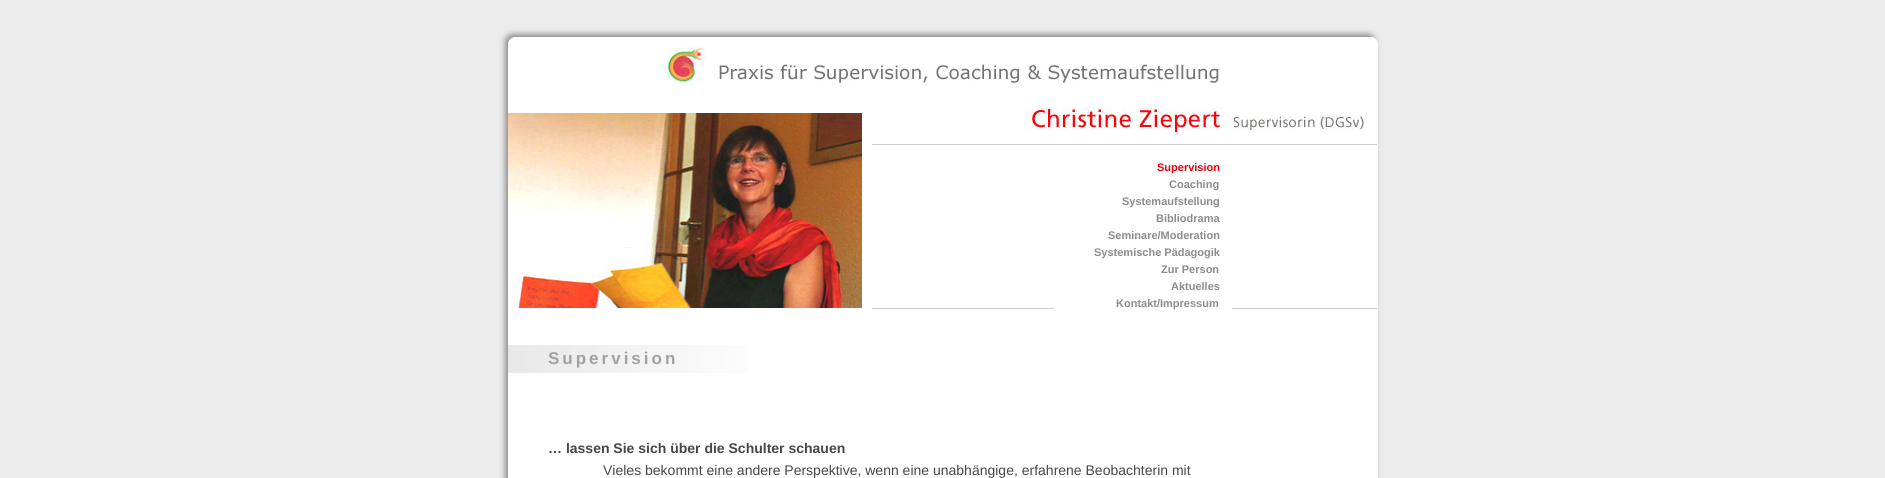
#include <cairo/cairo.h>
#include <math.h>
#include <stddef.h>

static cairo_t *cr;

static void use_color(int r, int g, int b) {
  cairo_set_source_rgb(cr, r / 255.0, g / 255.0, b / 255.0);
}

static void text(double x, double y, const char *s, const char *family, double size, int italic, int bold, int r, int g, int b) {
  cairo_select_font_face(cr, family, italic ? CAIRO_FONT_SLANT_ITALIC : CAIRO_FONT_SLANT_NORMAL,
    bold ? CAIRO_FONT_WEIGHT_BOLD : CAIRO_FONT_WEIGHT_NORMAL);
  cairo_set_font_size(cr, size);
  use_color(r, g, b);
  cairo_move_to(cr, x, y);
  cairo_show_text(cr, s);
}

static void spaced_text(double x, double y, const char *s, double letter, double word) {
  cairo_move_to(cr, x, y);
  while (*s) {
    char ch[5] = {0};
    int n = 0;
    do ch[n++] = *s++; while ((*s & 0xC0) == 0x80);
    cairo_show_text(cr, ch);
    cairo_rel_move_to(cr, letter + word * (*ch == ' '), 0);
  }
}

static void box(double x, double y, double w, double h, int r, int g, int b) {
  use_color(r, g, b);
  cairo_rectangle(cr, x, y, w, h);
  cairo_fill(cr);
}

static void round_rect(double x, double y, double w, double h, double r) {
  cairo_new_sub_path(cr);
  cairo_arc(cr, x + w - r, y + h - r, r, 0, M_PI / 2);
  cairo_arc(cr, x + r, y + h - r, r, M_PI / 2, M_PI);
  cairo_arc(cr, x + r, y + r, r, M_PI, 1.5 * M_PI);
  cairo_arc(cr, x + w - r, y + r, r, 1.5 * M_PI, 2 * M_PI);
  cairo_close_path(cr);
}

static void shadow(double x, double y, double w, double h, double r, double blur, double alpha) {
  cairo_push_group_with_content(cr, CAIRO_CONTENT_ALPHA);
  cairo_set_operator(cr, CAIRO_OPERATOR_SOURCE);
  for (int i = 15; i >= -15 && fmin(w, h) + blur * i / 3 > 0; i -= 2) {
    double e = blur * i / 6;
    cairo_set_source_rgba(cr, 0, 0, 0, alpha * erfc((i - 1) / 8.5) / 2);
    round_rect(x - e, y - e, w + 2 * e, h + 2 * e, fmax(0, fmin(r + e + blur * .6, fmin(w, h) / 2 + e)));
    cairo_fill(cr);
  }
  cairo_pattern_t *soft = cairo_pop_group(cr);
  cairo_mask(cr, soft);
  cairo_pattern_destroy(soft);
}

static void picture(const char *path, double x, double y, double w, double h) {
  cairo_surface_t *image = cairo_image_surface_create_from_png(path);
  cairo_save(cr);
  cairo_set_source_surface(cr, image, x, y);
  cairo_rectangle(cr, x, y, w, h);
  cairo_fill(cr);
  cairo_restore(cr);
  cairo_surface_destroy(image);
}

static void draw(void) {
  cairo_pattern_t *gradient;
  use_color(236, 236, 236);
  cairo_paint(cr);
  use_color(0, 0, 0);
  shadow(506, 35, 868, 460, 6, 3.5, 0.5);
  use_color(255, 255, 255);
  round_rect(508, 37, 870, 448, 7);
  cairo_fill(cr);
  picture("img_01.png", 667, 47, 552, 40);
  picture("img_02.png", 1026, 107, 344, 32);
  picture("img_03.png", 508, 113, 354, 195);
  box(872, 144, 505, 1, 208, 208, 208);
  box(872, 308, 505, 1, 208, 208, 208);
  box(1054, 308, 178, 1, 255, 255, 255);
  gradient = cairo_pattern_create_linear(508, 359, 1378, 359);
  cairo_pattern_add_color_stop_rgba(gradient, 0, 0.91, 0.91, 0.91, 1);
  cairo_pattern_add_color_stop_rgba(gradient, 0.31, 1, 1, 1, 1);
  cairo_set_source(cr, gradient);
  cairo_pattern_destroy(gradient);
  cairo_rectangle(cr, 508, 345, 240, 28);
  cairo_fill(cr);
  text(1157, 171, "Supervision", "Liberation Sans", 11, 0, 1, 233, 1, 12);
  text(1169, 188, "Coaching", "Liberation Sans", 11, 0, 1, 140, 140, 140);
  text(1122, 205, "Systemaufstellung", "Liberation Sans", 11, 0, 1, 140, 140, 140);
  text(1156, 222, "Bibliodrama", "Liberation Sans", 11, 0, 1, 140, 140, 140);
  text(1108, 239, "Seminare/Moderation", "Liberation Sans", 11, 0, 1, 140, 140, 140);
  text(1094, 256, "Systemische Pädagogik", "Liberation Sans", 11, 0, 1, 140, 140, 140);
  text(1161, 273, "Zur Person", "Liberation Sans", 11, 0, 1, 140, 140, 140);
  text(1171, 290, "Aktuelles", "Liberation Sans", 11, 0, 1, 140, 140, 140);
  text(1116, 307, "Kontakt/Impressum", "Liberation Sans", 11, 0, 1, 140, 140, 140);
  cairo_set_font_size(cr, 17);
  use_color(163, 160, 160);
  spaced_text(548, 364, "Supervision", 3, 0);
  text(548, 453, "… lassen Sie sich über die Schulter schauen", "Liberation Sans", 14, 0, 1, 71, 71, 71);
  text(603, 475, "Vieles bekommt eine andere Perspektive, wenn eine unabhängige, erfahrene Beobachterin mit", "Liberation Sans", 14, 0, 0, 71, 71, 71);
}

int main(void) {
  cairo_surface_t *surface = cairo_image_surface_create(CAIRO_FORMAT_RGB24, 1885, 478);
  cr = cairo_create(surface);
  cairo_font_options_t *options = cairo_font_options_create();
  cairo_font_options_set_hint_metrics(options, CAIRO_HINT_METRICS_OFF);
  cairo_font_options_set_hint_style(options, CAIRO_HINT_STYLE_NONE);
  cairo_set_font_options(cr, options);
  cairo_set_miter_limit(cr, 4);
  draw();
  cairo_surface_write_to_png(surface, "out.png");
  cairo_font_options_destroy(options);
  cairo_destroy(cr);
  cairo_surface_destroy(surface);
  return 0;
}
